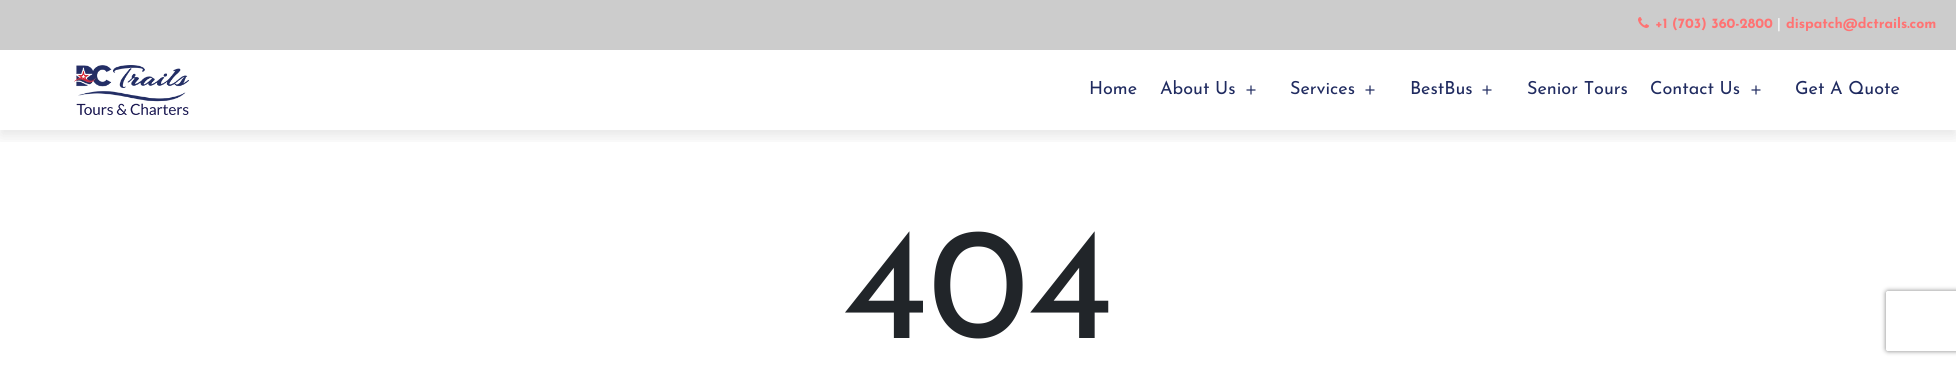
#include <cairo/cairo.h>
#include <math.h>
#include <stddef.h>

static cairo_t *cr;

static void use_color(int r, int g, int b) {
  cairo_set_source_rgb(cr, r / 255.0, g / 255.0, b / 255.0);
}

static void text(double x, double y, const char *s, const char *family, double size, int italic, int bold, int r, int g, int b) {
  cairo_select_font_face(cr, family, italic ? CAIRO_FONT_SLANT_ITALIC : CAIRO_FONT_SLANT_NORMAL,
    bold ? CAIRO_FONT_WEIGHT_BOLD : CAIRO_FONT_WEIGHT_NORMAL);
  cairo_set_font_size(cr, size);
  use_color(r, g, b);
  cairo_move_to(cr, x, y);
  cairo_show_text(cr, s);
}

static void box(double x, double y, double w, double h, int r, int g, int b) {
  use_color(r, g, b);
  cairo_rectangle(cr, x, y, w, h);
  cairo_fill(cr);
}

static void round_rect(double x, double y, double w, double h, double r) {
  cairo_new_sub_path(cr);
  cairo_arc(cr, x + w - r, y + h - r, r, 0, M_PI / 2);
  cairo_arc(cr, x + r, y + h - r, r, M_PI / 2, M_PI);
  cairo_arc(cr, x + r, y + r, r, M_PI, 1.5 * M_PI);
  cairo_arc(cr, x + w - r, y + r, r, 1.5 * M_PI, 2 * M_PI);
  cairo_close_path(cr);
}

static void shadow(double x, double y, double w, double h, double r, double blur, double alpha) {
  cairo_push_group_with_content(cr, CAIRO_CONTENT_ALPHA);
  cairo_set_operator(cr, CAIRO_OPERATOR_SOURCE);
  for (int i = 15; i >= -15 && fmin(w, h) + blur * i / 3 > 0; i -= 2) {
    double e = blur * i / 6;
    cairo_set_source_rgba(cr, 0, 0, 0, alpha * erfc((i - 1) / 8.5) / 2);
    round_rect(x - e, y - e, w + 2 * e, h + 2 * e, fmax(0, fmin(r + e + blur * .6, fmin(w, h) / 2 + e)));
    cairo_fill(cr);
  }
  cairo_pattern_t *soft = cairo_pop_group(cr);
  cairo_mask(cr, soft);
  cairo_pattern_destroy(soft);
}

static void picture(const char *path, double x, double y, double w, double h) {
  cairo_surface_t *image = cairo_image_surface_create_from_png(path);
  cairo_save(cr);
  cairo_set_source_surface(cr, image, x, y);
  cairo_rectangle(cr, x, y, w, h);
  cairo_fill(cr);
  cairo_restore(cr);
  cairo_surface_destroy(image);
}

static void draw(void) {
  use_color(255, 255, 255);
  cairo_paint(cr);
  box(0, 0, 1956, 50, 204, 204, 204);
  picture("img_01.png", 1638, 17, 11, 11);
  cairo_save(cr);
  cairo_rectangle(cr, 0, 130, 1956, 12);
  cairo_clip(cr);
  use_color(0, 0, 0);
  shadow(0, 56, 1956, 80, 0, 7.5, 0.1);
  cairo_restore(cr);
  picture("img_02.png", 74, 65, 115, 50);
  picture("img_03.png", 1246, 85, 10, 10);
  picture("img_03.png", 1365, 85, 10, 10);
  picture("img_03.png", 1482, 85, 10, 10);
  picture("img_03.png", 1751, 85, 10, 10);
  cairo_save(cr);
  cairo_set_fill_rule(cr, CAIRO_FILL_RULE_EVEN_ODD);
  cairo_new_path(cr);
  cairo_move_to(cr, 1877, 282);
  cairo_line_to(cr, 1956, 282);
  cairo_line_to(cr, 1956, 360);
  cairo_line_to(cr, 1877, 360);
  cairo_close_path(cr);
  cairo_move_to(cr, 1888, 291);
  cairo_line_to(cr, 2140, 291);
  cairo_curve_to(cr, 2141, 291, 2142, 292, 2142, 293);
  cairo_line_to(cr, 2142, 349);
  cairo_curve_to(cr, 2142, 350, 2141, 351, 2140, 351);
  cairo_line_to(cr, 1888, 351);
  cairo_curve_to(cr, 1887, 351, 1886, 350, 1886, 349);
  cairo_line_to(cr, 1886, 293);
  cairo_curve_to(cr, 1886, 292, 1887, 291, 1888, 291);
  cairo_close_path(cr);
  cairo_clip(cr);
  use_color(128, 128, 128);
  shadow(1886, 291, 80, 60, 2, 2.5, 1);
  cairo_restore(cr);
  text(1655, 28, "+1 (703) 360-2800", "Josefin Sans", 14, 0, 1, 255, 115, 115);
  text(1777, 28, "|", "Josefin Sans", 14, 0, 0, 255, 255, 255);
  text(1786, 28, "dispatch@dctrails.com", "Josefin Sans", 14, 0, 1, 255, 115, 115);
  text(1089, 94, "Home", "Josefin Sans", 18, 0, 0, 32, 43, 96);
  text(1160, 94, "About Us", "Josefin Sans", 18, 0, 0, 32, 43, 96);
  text(1290, 94, "Services", "Josefin Sans", 18, 0, 0, 32, 43, 96);
  text(1410, 94, "BestBus", "Josefin Sans", 18, 0, 0, 32, 43, 96);
  text(1527, 94, "Senior Tours", "Josefin Sans", 18, 0, 0, 32, 43, 96);
  text(1650, 94, "Contact Us", "Josefin Sans", 18, 0, 0, 32, 43, 96);
  text(1795, 94, "Get A Quote", "Josefin Sans", 18, 0, 0, 32, 43, 96);
  text(843, 338, "404", "Josefin Sans", 160, 0, 0, 33, 37, 41);
}

int main(void) {
  cairo_surface_t *surface = cairo_image_surface_create(CAIRO_FORMAT_RGB24, 1956, 365);
  cr = cairo_create(surface);
  cairo_font_options_t *options = cairo_font_options_create();
  cairo_font_options_set_hint_metrics(options, CAIRO_HINT_METRICS_OFF);
  cairo_font_options_set_hint_style(options, CAIRO_HINT_STYLE_NONE);
  cairo_set_font_options(cr, options);
  cairo_set_miter_limit(cr, 4);
  draw();
  cairo_surface_write_to_png(surface, "out.png");
  cairo_font_options_destroy(options);
  cairo_destroy(cr);
  cairo_surface_destroy(surface);
  return 0;
}
